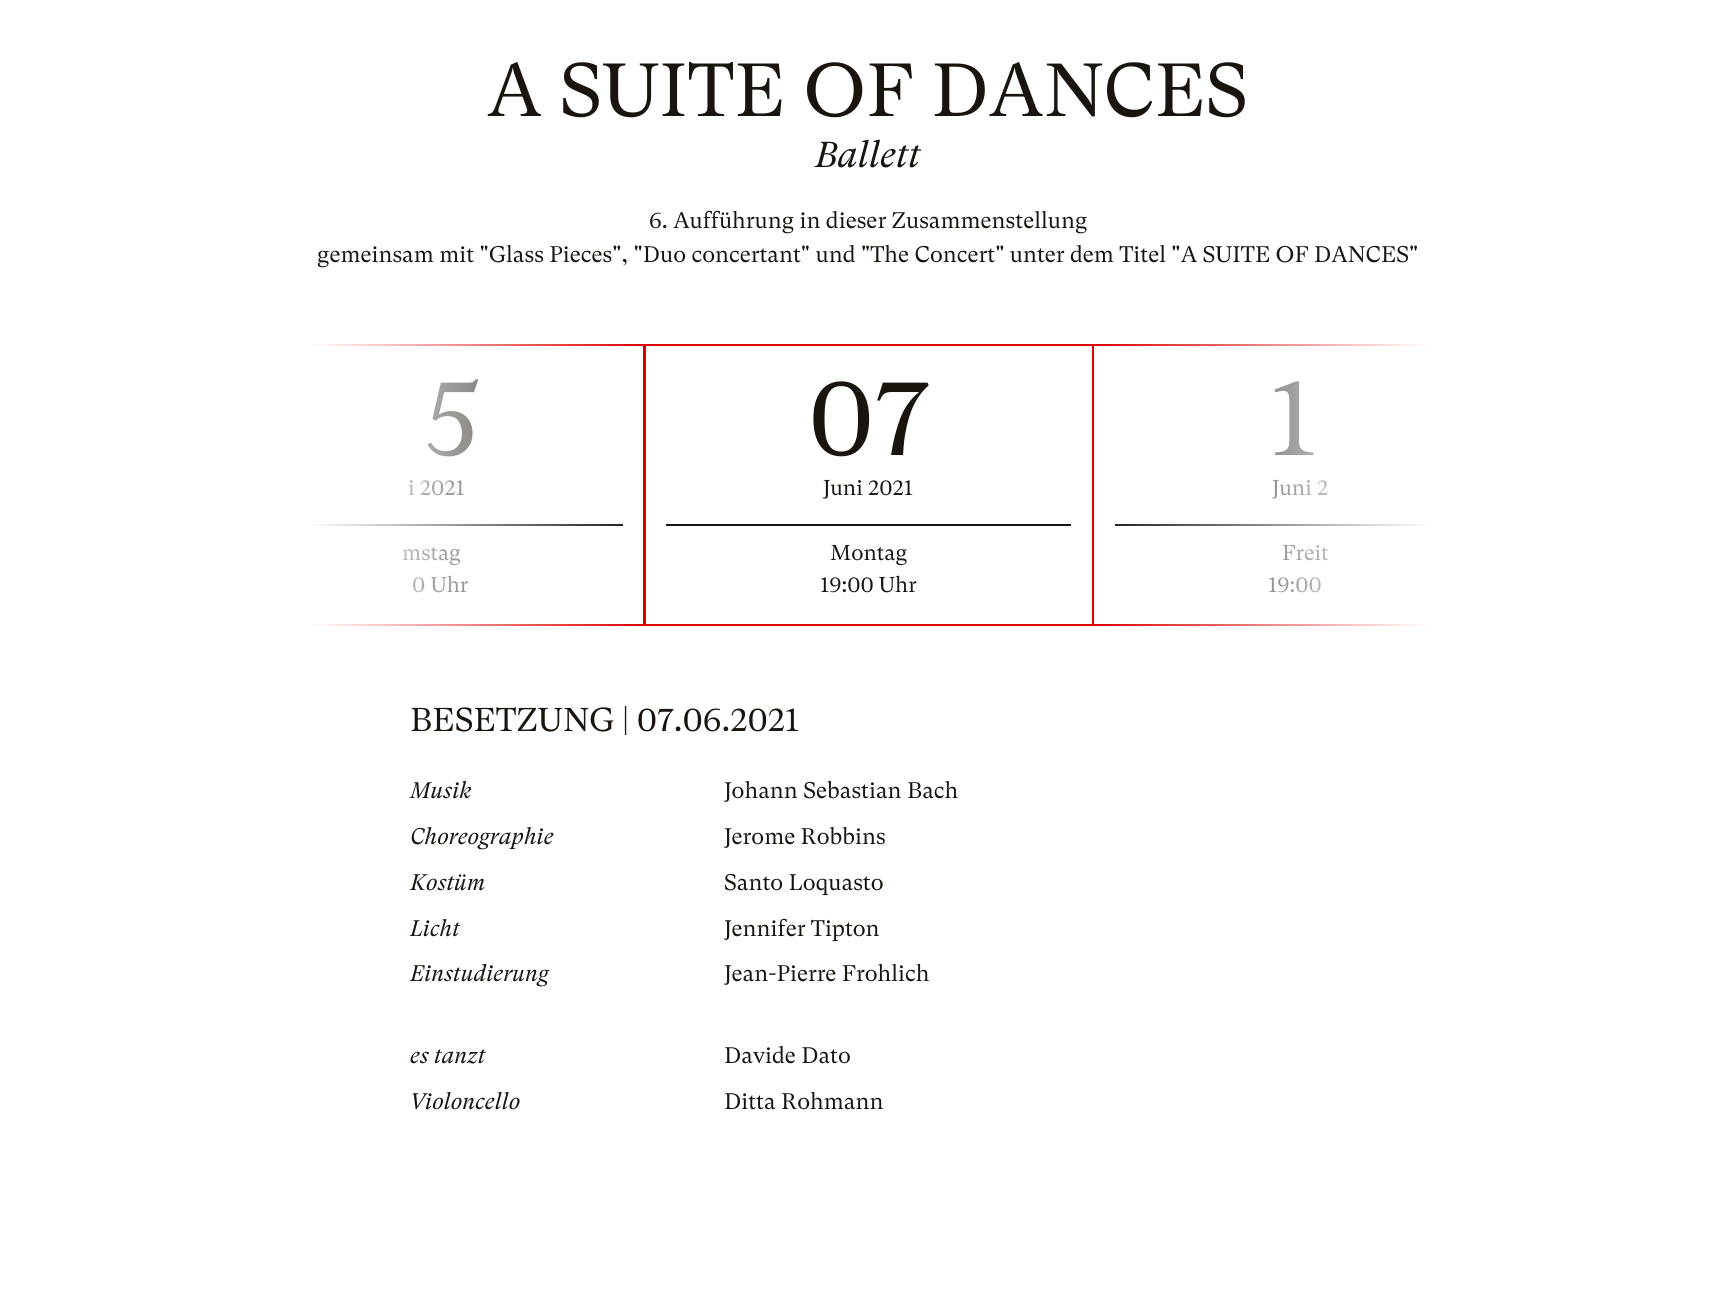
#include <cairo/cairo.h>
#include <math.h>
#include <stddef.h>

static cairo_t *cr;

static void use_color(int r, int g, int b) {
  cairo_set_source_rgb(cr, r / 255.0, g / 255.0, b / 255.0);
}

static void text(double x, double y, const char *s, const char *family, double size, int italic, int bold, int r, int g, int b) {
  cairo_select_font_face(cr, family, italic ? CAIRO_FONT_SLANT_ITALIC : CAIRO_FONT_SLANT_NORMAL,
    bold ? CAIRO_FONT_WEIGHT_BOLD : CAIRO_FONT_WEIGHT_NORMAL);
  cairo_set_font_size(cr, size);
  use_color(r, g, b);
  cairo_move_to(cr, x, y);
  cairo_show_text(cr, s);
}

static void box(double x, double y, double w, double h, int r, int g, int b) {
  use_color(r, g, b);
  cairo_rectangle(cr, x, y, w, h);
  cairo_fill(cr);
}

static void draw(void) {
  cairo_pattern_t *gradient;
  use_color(255, 255, 255);
  cairo_paint(cr);
  cairo_rectangle(cr, 196, 345, 448, 280);
  use_color(222, 0, 0);
  cairo_stroke(cr);
  box(309, 524, 314, 2, 25, 20, 14);
  cairo_rectangle(cr, 645, 345, 448, 280);
  use_color(222, 0, 0);
  cairo_stroke(cr);
  box(666, 524, 405, 2, 25, 20, 14);
  cairo_rectangle(cr, 1093, 345, 448, 280);
  use_color(222, 0, 0);
  cairo_stroke(cr);
  box(1115, 524, 313, 2, 25, 20, 14);
  text(487, 116, "A SUITE OF DANCES", "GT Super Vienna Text", 75, 0, 0, 25, 20, 14);
  text(815, 167, "Ballett", "GT Super Vienna Text", 36, 1, 0, 25, 20, 14);
  text(649, 228, "6. Aufführung in dieser Zusammenstellung", "GT Super Vienna Text", 22.5, 0, 0, 25, 20, 14);
  text(317, 262, "gemeinsam mit \"Glass Pieces\", \"Duo concertant\" und \"The Concert\" unter dem Titel \"A SUITE OF DANCES\"", "GT Super Vienna Text", 22.5, 0, 0, 25, 20, 14);
  text(426, 455, "5", "GT Super Vienna Text", 108, 0, 0, 25, 20, 14);
  text(408, 495, "i 2021", "GT Super Vienna Text", 21.5, 0, 0, 25, 20, 14);
  text(402, 560, "mstag", "GT Super Vienna Text", 21.5, 0, 0, 25, 20, 14);
  text(412, 592, "0 Uhr", "GT Super Vienna Text", 21.5, 0, 0, 25, 20, 14);
  gradient = cairo_pattern_create_linear(195, 485, 645, 485);
  cairo_pattern_add_color_stop_rgba(gradient, 0.25, 1, 1, 1, 1);
  cairo_pattern_add_color_stop_rgba(gradient, 1, 1, 1, 1, 0);
  cairo_set_source(cr, gradient);
  cairo_pattern_destroy(gradient);
  cairo_rectangle(cr, 195, 344, 443, 282);
  cairo_fill(cr);
  text(808, 455, "07", "GT Super Vienna Text", 108, 0, 0, 25, 20, 14);
  text(823, 495, "Juni 2021", "GT Super Vienna Text", 21.5, 0, 0, 25, 20, 14);
  text(830, 560, "Montag", "GT Super Vienna Text", 21.5, 0, 0, 25, 20, 14);
  text(820, 592, "19:00 Uhr", "GT Super Vienna Text", 21.5, 0, 0, 25, 20, 14);
  text(1270, 455, "1", "GT Super Vienna Text", 108, 0, 0, 25, 20, 14);
  text(1272, 495, "Juni 2", "GT Super Vienna Text", 21.5, 0, 0, 25, 20, 14);
  text(1282, 560, "Freit", "GT Super Vienna Text", 21.5, 0, 0, 25, 20, 14);
  text(1268, 592, "19:00", "GT Super Vienna Text", 21.5, 0, 0, 25, 20, 14);
  gradient = cairo_pattern_create_linear(1542, 485, 1092, 485);
  cairo_pattern_add_color_stop_rgba(gradient, 0.25, 1, 1, 1, 1);
  cairo_pattern_add_color_stop_rgba(gradient, 1, 1, 1, 1, 0);
  cairo_set_source(cr, gradient);
  cairo_pattern_destroy(gradient);
  cairo_rectangle(cr, 1099, 344, 443, 282);
  cairo_fill(cr);
  text(410, 731, "BESETZUNG | 07.06.2021", "GT Super Vienna Text", 33, 0, 0, 25, 20, 14);
  text(410, 798, "Musik", "GT Super Vienna Text", 22.5, 1, 0, 25, 20, 14);
  text(724, 798, "Johann Sebastian Bach", "GT Super Vienna Text", 22.5, 0, 0, 25, 20, 14);
  text(410, 844, "Choreographie", "GT Super Vienna Text", 22.5, 1, 0, 25, 20, 14);
  text(724, 844, "Jerome Robbins", "GT Super Vienna Text", 22.5, 0, 0, 25, 20, 14);
  text(410, 890, "Kostüm", "GT Super Vienna Text", 22.5, 1, 0, 25, 20, 14);
  text(724, 890, "Santo Loquasto", "GT Super Vienna Text", 22.5, 0, 0, 25, 20, 14);
  text(410, 936, "Licht", "GT Super Vienna Text", 22.5, 1, 0, 25, 20, 14);
  text(724, 936, "Jennifer Tipton", "GT Super Vienna Text", 22.5, 0, 0, 25, 20, 14);
  text(410, 981, "Einstudierung", "GT Super Vienna Text", 22.5, 1, 0, 25, 20, 14);
  text(724, 981, "Jean-Pierre Frohlich", "GT Super Vienna Text", 22.5, 0, 0, 25, 20, 14);
  text(410, 1063, "es tanzt", "GT Super Vienna Text", 22.5, 1, 0, 25, 20, 14);
  text(724, 1063, "Davide Dato", "GT Super Vienna Text", 22.5, 0, 0, 25, 20, 14);
  text(410, 1109, "Violoncello", "GT Super Vienna Text", 22.5, 1, 0, 25, 20, 14);
  text(724, 1109, "Ditta Rohmann", "GT Super Vienna Text", 22.5, 0, 0, 25, 20, 14);
}

int main(void) {
  cairo_surface_t *surface = cairo_image_surface_create(CAIRO_FORMAT_RGB24, 1735, 1302);
  cr = cairo_create(surface);
  cairo_font_options_t *options = cairo_font_options_create();
  cairo_font_options_set_hint_metrics(options, CAIRO_HINT_METRICS_OFF);
  cairo_font_options_set_hint_style(options, CAIRO_HINT_STYLE_NONE);
  cairo_set_font_options(cr, options);
  cairo_set_miter_limit(cr, 4);
  draw();
  cairo_surface_write_to_png(surface, "out.png");
  cairo_font_options_destroy(options);
  cairo_destroy(cr);
  cairo_surface_destroy(surface);
  return 0;
}
